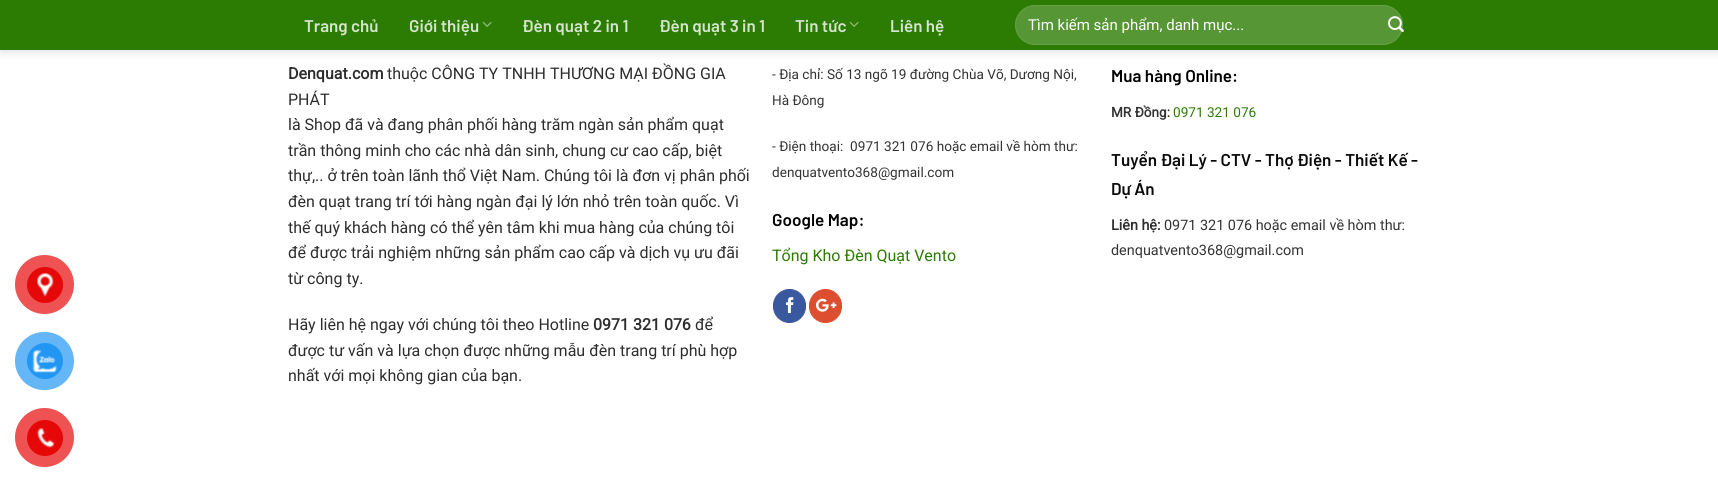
#include <cairo/cairo.h>
#include <math.h>
#include <stddef.h>

static cairo_t *cr;

static void use_color(int r, int g, int b) {
  cairo_set_source_rgb(cr, r / 255.0, g / 255.0, b / 255.0);
}

static void text(double x, double y, const char *s, const char *family, double size, int italic, int bold, int r, int g, int b) {
  cairo_select_font_face(cr, family, italic ? CAIRO_FONT_SLANT_ITALIC : CAIRO_FONT_SLANT_NORMAL,
    bold ? CAIRO_FONT_WEIGHT_BOLD : CAIRO_FONT_WEIGHT_NORMAL);
  cairo_set_font_size(cr, size);
  use_color(r, g, b);
  cairo_move_to(cr, x, y);
  cairo_show_text(cr, s);
}

static void box(double x, double y, double w, double h, int r, int g, int b) {
  use_color(r, g, b);
  cairo_rectangle(cr, x, y, w, h);
  cairo_fill(cr);
}

static void round_rect(double x, double y, double w, double h, double r) {
  cairo_new_sub_path(cr);
  cairo_arc(cr, x + w - r, y + h - r, r, 0, M_PI / 2);
  cairo_arc(cr, x + r, y + h - r, r, M_PI / 2, M_PI);
  cairo_arc(cr, x + r, y + r, r, M_PI, 1.5 * M_PI);
  cairo_arc(cr, x + w - r, y + r, r, 1.5 * M_PI, 2 * M_PI);
  cairo_close_path(cr);
}

static void shadow(double x, double y, double w, double h, double r, double blur, double alpha) {
  cairo_push_group_with_content(cr, CAIRO_CONTENT_ALPHA);
  cairo_set_operator(cr, CAIRO_OPERATOR_SOURCE);
  for (int i = 15; i >= -15 && fmin(w, h) + blur * i / 3 > 0; i -= 2) {
    double e = blur * i / 6;
    cairo_set_source_rgba(cr, 0, 0, 0, alpha * erfc((i - 1) / 8.5) / 2);
    round_rect(x - e, y - e, w + 2 * e, h + 2 * e, fmax(0, fmin(r + e + blur * .6, fmin(w, h) / 2 + e)));
    cairo_fill(cr);
  }
  cairo_pattern_t *soft = cairo_pop_group(cr);
  cairo_mask(cr, soft);
  cairo_pattern_destroy(soft);
}

static void picture(const char *path, double x, double y, double w, double h) {
  cairo_surface_t *image = cairo_image_surface_create_from_png(path);
  cairo_save(cr);
  cairo_set_source_surface(cr, image, x, y);
  cairo_rectangle(cr, x, y, w, h);
  cairo_fill(cr);
  cairo_restore(cr);
  cairo_surface_destroy(image);
}

static void draw(void) {
  use_color(255, 255, 255);
  cairo_paint(cr);
  use_color(238, 82, 82);
  cairo_arc(cr, 44.5, 284.5, 29.5, 0, 2 * M_PI);
  cairo_fill(cr);
  use_color(230, 8, 8);
  cairo_arc(cr, 45, 285, 18, 0, 2 * M_PI);
  cairo_fill(cr);
  picture("img_01.png", 37, 273, 17, 24);
  use_color(100, 182, 247);
  round_rect(15, 332, 59, 58, 29);
  cairo_fill(cr);
  use_color(33, 150, 243);
  cairo_arc(cr, 45, 361, 18, 0, 2 * M_PI);
  cairo_fill(cr);
  picture("img_02.png", 32, 349, 25, 24);
  use_color(238, 82, 82);
  cairo_arc(cr, 44.5, 437.5, 29.5, 0, 2 * M_PI);
  cairo_fill(cr);
  use_color(230, 8, 8);
  cairo_arc(cr, 45, 438, 18, 0, 2 * M_PI);
  cairo_fill(cr);
  picture("img_03.png", 37, 428, 18, 20);
  use_color(0, 0, 0);
  shadow(1, 1, 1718, 50, 0, 5, 0.15);
  box(0, 0, 1718, 50, 44, 124, 3);
  picture("img_04.png", 482, 21, 10, 6);
  picture("img_04.png", 849, 21, 10, 6);
  use_color(86, 150, 53);
  round_rect(1015, 5, 388, 40, 20);
  cairo_fill(cr);
  round_rect(1015.5, 5.5, 387, 39, 19.5);
  cairo_set_source_rgba(cr, 1, 1, 1, 0.09);
  cairo_set_line_width(cr, 1);
  cairo_stroke(cr);
  picture("img_05.png", 1388, 16, 16, 16);
  use_color(58, 88, 157);
  round_rect(773.5, 289.5, 32, 33, 16);
  cairo_fill_preserve(cr);
  cairo_stroke(cr);
  picture("img_06.png", 785, 297, 9, 16);
  use_color(221, 78, 49);
  round_rect(809.5, 289.5, 32, 33, 16);
  cairo_fill_preserve(cr);
  cairo_stroke(cr);
  picture("img_07.png", 816, 298, 21, 14);
  text(304, 32, "Trang chủ", "Barlow SemiBold", 17, 0, 0, 213, 229, 205);
  text(409, 32, "Giới thiệu", "Barlow SemiBold", 17, 0, 0, 213, 229, 205);
  text(522, 32, "Đèn quạt 2 in 1", "Barlow SemiBold", 17, 0, 0, 213, 229, 205);
  text(659, 32, "Đèn quạt 3 in 1", "Barlow SemiBold", 17, 0, 0, 213, 229, 205);
  text(795, 32, "Tin tức", "Barlow SemiBold", 17, 0, 0, 213, 229, 205);
  text(890, 32, "Liên hệ", "Barlow SemiBold", 17, 0, 0, 213, 229, 205);
  text(1028, 30, "Tìm kiếm sản phẩm, danh mục...", "Roboto", 15, 0, 0, 255, 255, 255);
  text(288, 79, "Denquat.com", "Roboto", 16, 0, 1, 45, 45, 45);
  text(387, 79, "thuộc CÔNG TY TNHH THƯƠNG MẠI ĐỒNG GIA", "Roboto", 16, 0, 0, 45, 45, 45);
  text(288, 105, "PHÁT", "Roboto", 16, 0, 0, 45, 45, 45);
  text(288, 130, "là Shop đã và đang phân phối hàng trăm ngàn sản phẩm quạt", "Roboto", 16, 0, 0, 45, 45, 45);
  text(288, 156, "trần thông minh cho các nhà dân sinh, chung cư cao cấp, biệt", "Roboto", 16, 0, 0, 45, 45, 45);
  text(288, 181, "thự,.. ở trên toàn lãnh thổ Việt Nam. Chúng tôi là đơn vị phân phối", "Roboto", 16, 0, 0, 45, 45, 45);
  text(288, 207, "đèn quạt trang trí tới hàng ngàn đại lý lớn nhỏ trên toàn quốc. Vì", "Roboto", 16, 0, 0, 45, 45, 45);
  text(288, 233, "thế quý khách hàng có thể yên tâm khi mua hàng của chúng tôi", "Roboto", 16, 0, 0, 45, 45, 45);
  text(288, 258, "để được trải nghiệm những sản phẩm cao cấp và dịch vụ ưu đãi", "Roboto", 16, 0, 0, 45, 45, 45);
  text(288, 284, "từ công ty.", "Roboto", 16, 0, 0, 45, 45, 45);
  text(288, 330, "Hãy liên hệ ngay với chúng tôi theo Hotline", "Roboto", 16, 0, 0, 45, 45, 45);
  text(593, 330, "0971 321 076", "Roboto", 16, 0, 1, 45, 45, 45);
  text(695, 330, "để", "Roboto", 16, 0, 0, 45, 45, 45);
  text(288, 356, "được tư vấn và lựa chọn được những mẫu đèn trang trí phù hợp", "Roboto", 16, 0, 0, 45, 45, 45);
  text(288, 381, "nhất với mọi không gian của bạn.", "Roboto", 16, 0, 0, 45, 45, 45);
  text(772, 79, "- Địa chỉ: Số 13 ngõ 19 đường Chùa Võ, Dương Nội,", "Roboto", 13.6, 0, 0, 51, 51, 51);
  text(772, 105, "Hà Đông", "Roboto", 13.6, 0, 0, 51, 51, 51);
  text(772, 151, "- Điện thoại:  0971 321 076 hoặc email về hòm thư:", "Roboto", 13.6, 0, 0, 51, 51, 51);
  text(772, 177, "denquatvento368@gmail.com", "Roboto", 13.6, 0, 0, 51, 51, 51);
  text(772, 226, "Google Map:", "Barlow SemiBold", 17.1, 0, 0, 0, 0, 0);
  text(772, 261, "Tổng Kho Đèn Quạt Vento", "Roboto", 16, 0, 0, 44, 124, 3);
  text(1111, 82, "Mua hàng Online:", "Barlow SemiBold", 17.1, 0, 0, 0, 0, 0);
  text(1111, 117, "MR Đồng:", "Roboto", 13.6, 0, 1, 51, 51, 51);
  text(1173, 117, "0971 321 076", "Roboto", 13.6, 0, 0, 44, 124, 3);
  text(1111, 166, "Tuyển Đại Lý - CTV - Thợ Điện - Thiết Kế -", "Barlow SemiBold", 17.1, 0, 0, 10, 10, 10);
  text(1111, 195, "Dự Án", "Barlow SemiBold", 17.1, 0, 0, 10, 10, 10);
  text(1111, 230, "Liên hệ:", "Roboto", 14.4, 0, 1, 45, 45, 45);
  text(1164, 230, "0971 321 076 hoặc email về hòm thư:", "Roboto", 14.4, 0, 0, 51, 51, 51);
  text(1111, 255, "denquatvento368@gmail.com", "Roboto", 14.4, 0, 0, 51, 51, 51);
}

int main(void) {
  cairo_surface_t *surface = cairo_image_surface_create(CAIRO_FORMAT_RGB24, 1718, 491);
  cr = cairo_create(surface);
  cairo_font_options_t *options = cairo_font_options_create();
  cairo_font_options_set_hint_metrics(options, CAIRO_HINT_METRICS_OFF);
  cairo_font_options_set_hint_style(options, CAIRO_HINT_STYLE_NONE);
  cairo_set_font_options(cr, options);
  cairo_set_miter_limit(cr, 4);
  draw();
  cairo_surface_write_to_png(surface, "out.png");
  cairo_font_options_destroy(options);
  cairo_destroy(cr);
  cairo_surface_destroy(surface);
  return 0;
}
